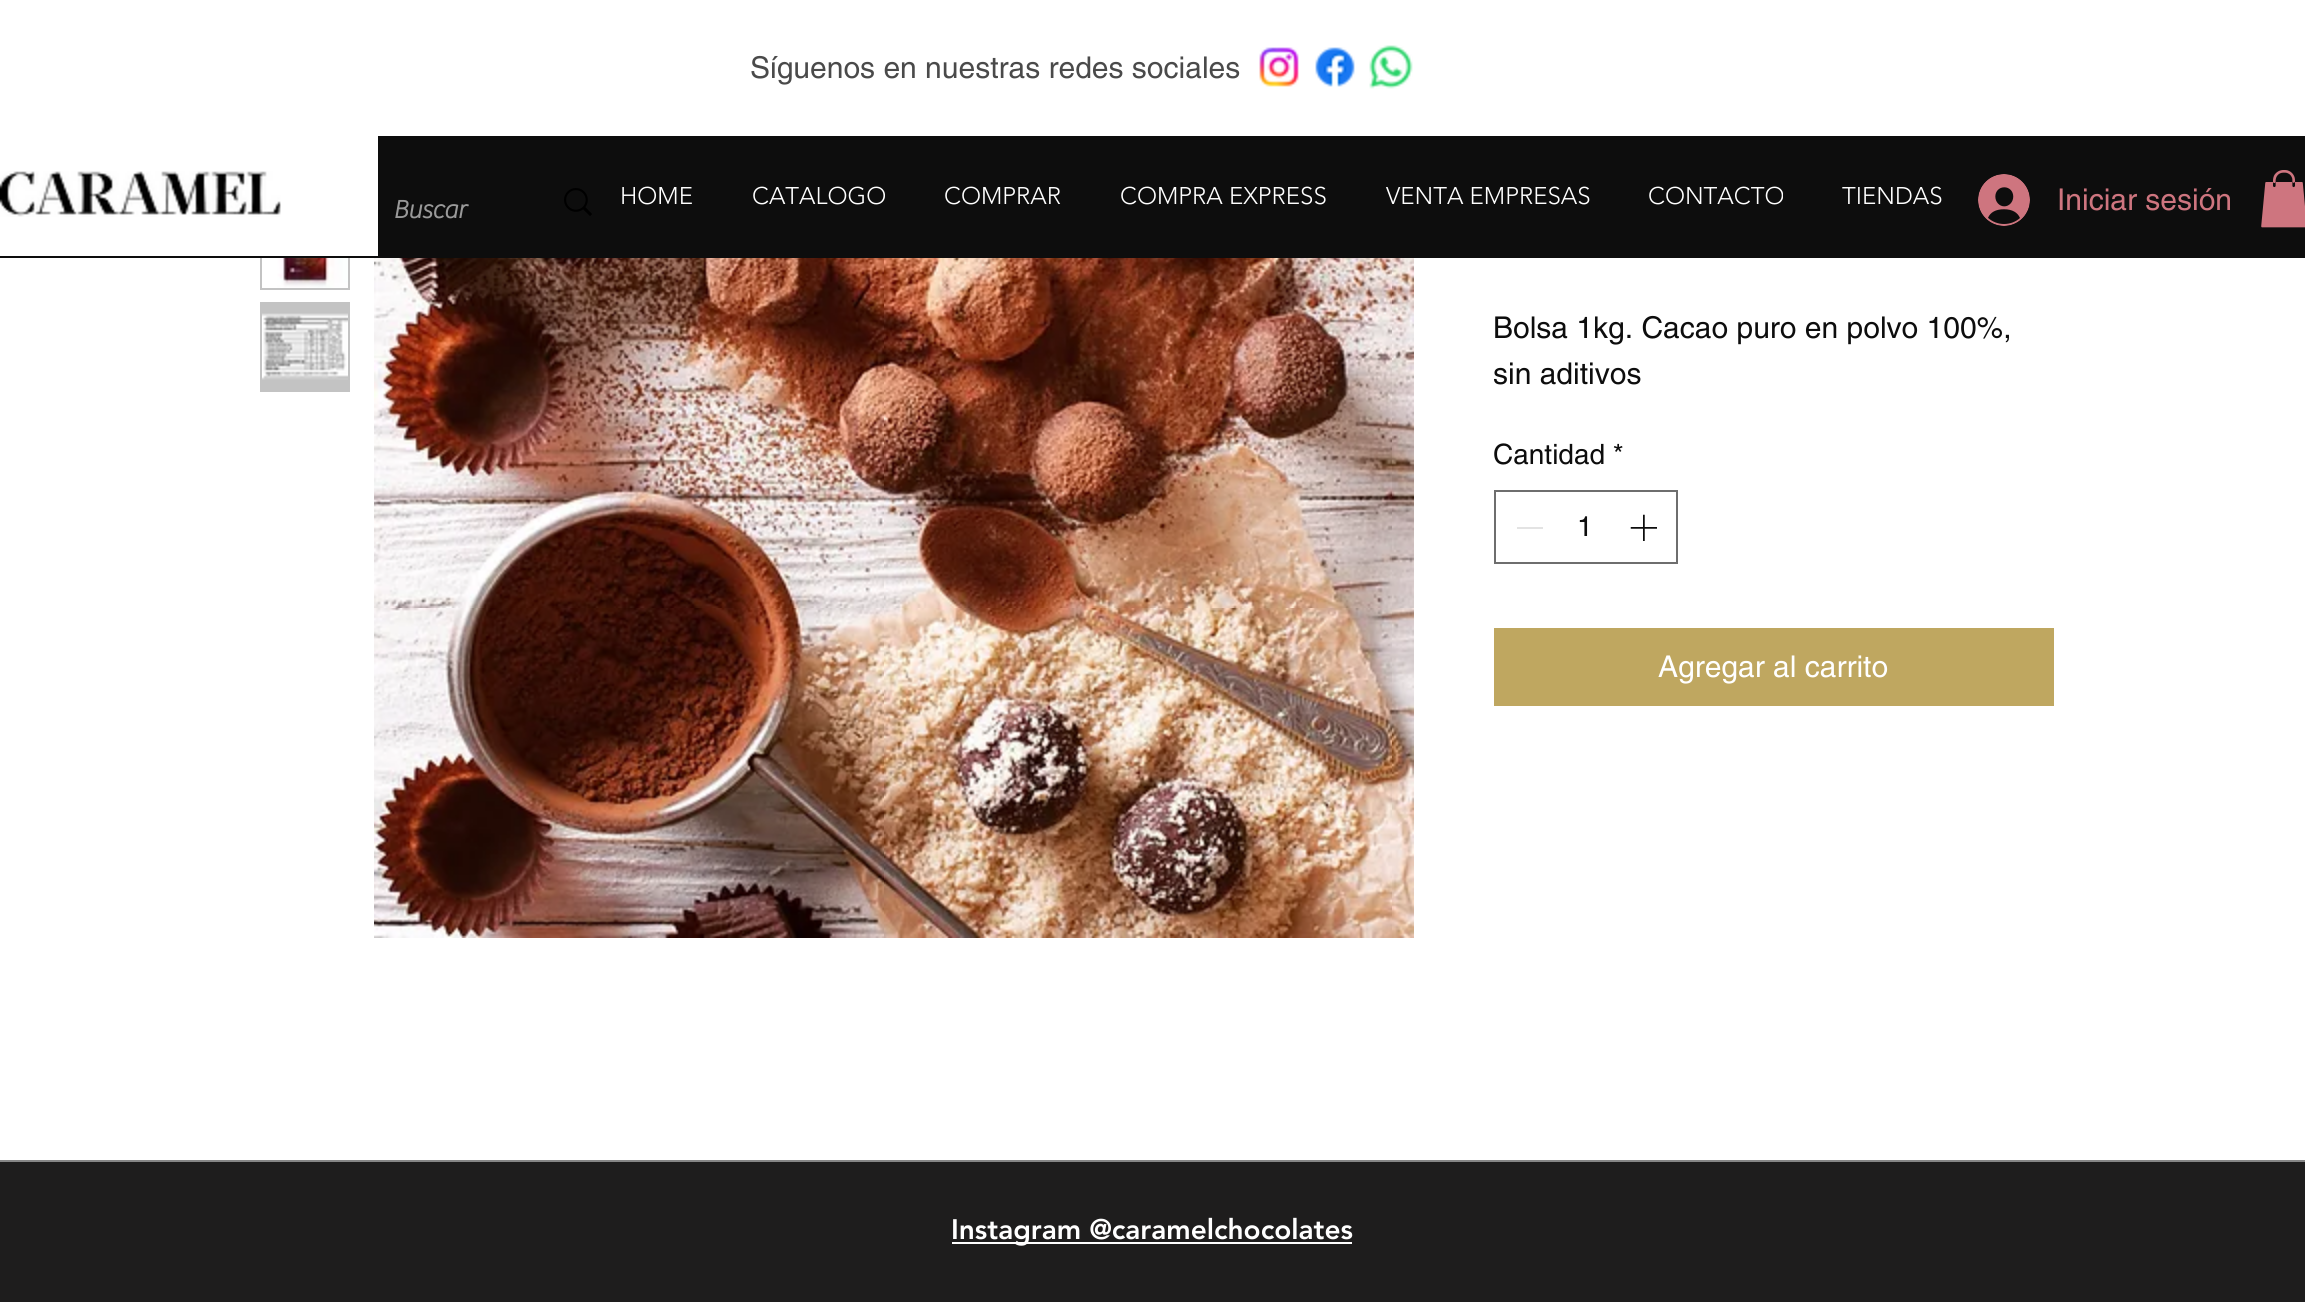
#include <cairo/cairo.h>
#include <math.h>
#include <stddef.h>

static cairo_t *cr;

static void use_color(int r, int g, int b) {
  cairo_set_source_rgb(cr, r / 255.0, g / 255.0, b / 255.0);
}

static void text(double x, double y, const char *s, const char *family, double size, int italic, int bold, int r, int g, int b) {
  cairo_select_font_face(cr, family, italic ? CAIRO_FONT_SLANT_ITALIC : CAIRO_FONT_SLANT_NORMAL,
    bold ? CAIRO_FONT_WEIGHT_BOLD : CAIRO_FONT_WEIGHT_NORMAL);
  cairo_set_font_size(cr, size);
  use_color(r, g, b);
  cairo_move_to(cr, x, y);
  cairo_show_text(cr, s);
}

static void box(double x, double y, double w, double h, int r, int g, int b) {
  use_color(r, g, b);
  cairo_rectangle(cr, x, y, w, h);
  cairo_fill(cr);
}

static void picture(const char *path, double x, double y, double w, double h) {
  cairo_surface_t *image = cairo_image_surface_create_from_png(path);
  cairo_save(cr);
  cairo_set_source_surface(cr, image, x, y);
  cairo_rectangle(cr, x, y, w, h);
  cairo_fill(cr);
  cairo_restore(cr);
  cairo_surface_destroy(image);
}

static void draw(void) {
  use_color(255, 255, 255);
  cairo_paint(cr);
  picture("img_01.png", 1259, 47, 40, 40);
  picture("img_02.png", 1315, 47, 40, 40);
  picture("img_03.png", 1369, 45, 44, 44);
  box(0, 136, 2305, 122, 13, 13, 13);
  box(0, 136, 378, 120, 255, 255, 255);
  picture("img_04.png", 0, 171, 281, 46);
  picture("img_05.png", 564, 188, 28, 28);
  picture("img_06.png", 1978, 174, 52, 52);
  picture("img_07.png", 2261, 170, 44, 58);
  box(260, 258, 90, 32, 195, 195, 195);
  picture("img_08.png", 262, 258, 86, 30);
  box(260, 302, 90, 90, 195, 195, 195);
  picture("img_09.png", 262, 313, 86, 67);
  picture("img_10.png", 374, 258, 1040, 680);
  cairo_rectangle(cr, 1495, 491, 182, 72);
  use_color(110, 110, 110);
  cairo_stroke(cr);
  box(1517, 527, 26, 2, 227, 227, 227);
  picture("img_11.png", 1630, 514, 27, 27);
  box(1494, 628, 560, 78, 191, 167, 96);
  box(0, 1160, 2305, 2, 134, 134, 134);
  box(0, 1162, 2305, 140, 30, 29, 29);
  box(952, 1242, 400, 2, 255, 255, 255);
  text(750, 78, "Síguenos en nuestras redes sociales", "helvetica", 30, 0, 0, 74, 74, 74);
  text(393, 218, "Buscar", "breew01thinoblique", 26, 0, 1, 153, 153, 153);
  text(620, 204, "HOME", "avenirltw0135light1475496 Light", 24, 0, 0, 255, 255, 255);
  text(752, 204, "CATALOGO", "avenirltw0135light1475496 Light", 24, 0, 0, 255, 255, 255);
  text(944, 204, "COMPRAR", "avenirltw0135light1475496 Light", 24, 0, 0, 255, 255, 255);
  text(1120, 204, "COMPRA EXPRESS", "avenirltw0135light1475496 Light", 24, 0, 0, 255, 255, 255);
  text(1386, 204, "VENTA EMPRESAS", "avenirltw0135light1475496 Light", 24, 0, 0, 255, 255, 255);
  text(1648, 204, "CONTACTO", "avenirltw0135light1475496 Light", 24, 0, 0, 255, 255, 255);
  text(1842, 204, "TIENDAS", "avenirltw0135light1475496 Light", 24, 0, 0, 255, 255, 255);
  text(2057, 210, "Iniciar sesión", "helvetica", 30, 0, 0, 206, 117, 127);
  text(1493, 338, "Bolsa 1kg. Cacao puro en polvo 100%,", "helvetica", 30, 0, 0, 13, 13, 13);
  text(1493, 384, "sin aditivos", "helvetica", 30, 0, 0, 13, 13, 13);
  text(1493, 464, "Cantidad *", "helvetica", 28, 0, 0, 13, 13, 13);
  text(1577, 536, "1", "helvetica", 28, 0, 0, 13, 13, 13);
  text(1658, 677, "Agregar al carrito", "helvetica", 30, 0, 0, 255, 255, 255);
  text(951, 1239, "Instagram @caramelchocolates", "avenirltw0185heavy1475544 Black", 28, 0, 0, 255, 255, 255);
}

int main(void) {
  cairo_surface_t *surface = cairo_image_surface_create(CAIRO_FORMAT_RGB24, 2305, 1302);
  cr = cairo_create(surface);
  cairo_font_options_t *options = cairo_font_options_create();
  cairo_font_options_set_hint_metrics(options, CAIRO_HINT_METRICS_OFF);
  cairo_font_options_set_hint_style(options, CAIRO_HINT_STYLE_NONE);
  cairo_set_font_options(cr, options);
  cairo_set_miter_limit(cr, 4);
  draw();
  cairo_surface_write_to_png(surface, "out.png");
  cairo_font_options_destroy(options);
  cairo_destroy(cr);
  cairo_surface_destroy(surface);
  return 0;
}
